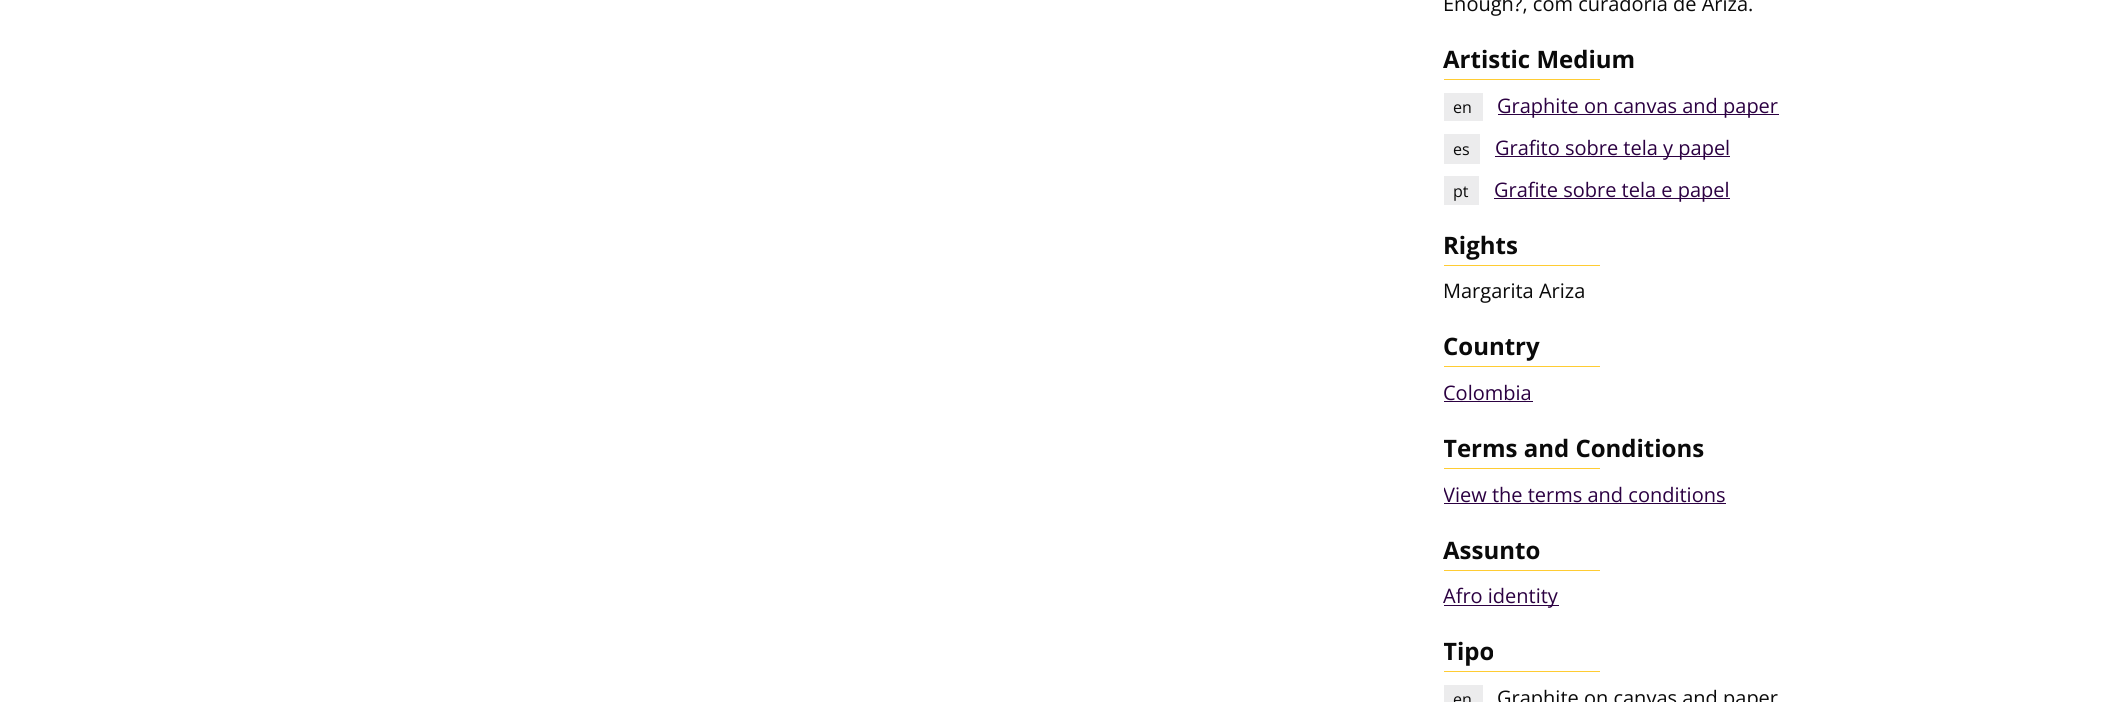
#include <cairo/cairo.h>
#include <math.h>
#include <stddef.h>

static cairo_t *cr;

static void use_color(int r, int g, int b) {
  cairo_set_source_rgb(cr, r / 255.0, g / 255.0, b / 255.0);
}

static void text(double x, double y, const char *s, const char *family, double size, int italic, int bold, int r, int g, int b) {
  cairo_select_font_face(cr, family, italic ? CAIRO_FONT_SLANT_ITALIC : CAIRO_FONT_SLANT_NORMAL,
    bold ? CAIRO_FONT_WEIGHT_BOLD : CAIRO_FONT_WEIGHT_NORMAL);
  cairo_set_font_size(cr, size);
  use_color(r, g, b);
  cairo_move_to(cr, x, y);
  cairo_show_text(cr, s);
}

static void box(double x, double y, double w, double h, int r, int g, int b) {
  use_color(r, g, b);
  cairo_rectangle(cr, x, y, w, h);
  cairo_fill(cr);
}

static void draw(void) {
  use_color(255, 255, 255);
  cairo_paint(cr);
  box(1444, 79, 156, 1, 255, 204, 51);
  box(1444, 93, 39, 28, 236, 236, 237);
  box(1498, 114, 281, 1, 44, 1, 66);
  box(1444, 134, 36, 30, 236, 236, 237);
  box(1495, 156, 235, 1, 44, 1, 66);
  box(1444, 176, 35, 29, 236, 236, 237);
  box(1494, 198, 236, 1, 44, 1, 66);
  box(1444, 265, 156, 1, 255, 204, 51);
  box(1444, 366, 156, 1, 255, 204, 51);
  box(1444, 401, 89, 1, 44, 1, 66);
  box(1444, 468, 156, 1, 255, 204, 51);
  box(1444, 503, 282, 1, 44, 1, 66);
  box(1444, 570, 156, 1, 255, 204, 51);
  box(1444, 605, 115, 1, 44, 1, 66);
  box(1444, 671, 156, 1, 255, 204, 51);
  box(1444, 685, 39, 17, 236, 236, 237);
  text(1443, 11, "Enough?, com curadoria de Ariza.", "Open Sans", 20, 0, 0, 10, 10, 10);
  text(1443, 68, "Artistic Medium", "Open Sans", 24, 0, 1, 10, 10, 10);
  text(1453, 113, "en", "Open Sans", 16, 0, 0, 10, 10, 10);
  text(1497, 113, "Graphite on canvas and paper", "Open Sans", 20, 0, 0, 44, 1, 66);
  text(1453, 155, "es", "Open Sans", 16, 0, 0, 10, 10, 10);
  text(1495, 155, "Grafito sobre tela y papel", "Open Sans", 20, 0, 0, 44, 1, 66);
  text(1453, 197, "pt", "Open Sans", 16, 0, 0, 10, 10, 10);
  text(1494, 197, "Grafite sobre tela e papel", "Open Sans", 20, 0, 0, 44, 1, 66);
  text(1443, 254, "Rights", "Open Sans", 24, 0, 1, 10, 10, 10);
  text(1443, 298, "Margarita Ariza", "Open Sans", 20, 0, 0, 10, 10, 10);
  text(1443, 355, "Country", "Open Sans", 24, 0, 1, 10, 10, 10);
  text(1443, 400, "Colombia", "Open Sans", 20, 0, 0, 44, 1, 66);
  cairo_save(cr);
  cairo_rectangle(cr, 1444, 430, 621, 81);
  cairo_clip(cr);
  text(1443, 457, "Terms and Conditions", "Open Sans", 24, 0, 1, 10, 10, 10);
  cairo_restore(cr);
  cairo_save(cr);
  cairo_rectangle(cr, 1444, 479, 621, 32);
  cairo_clip(cr);
  text(1443, 502, "View the terms and conditions", "Open Sans", 20, 0, 0, 44, 1, 66);
  cairo_restore(cr);
  text(1443, 559, "Assunto", "Open Sans", 24, 0, 1, 10, 10, 10);
  text(1443, 603, "Afro identity", "Open Sans", 20, 0, 0, 44, 1, 66);
  cairo_save(cr);
  cairo_rectangle(cr, 1444, 633, 621, 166);
  cairo_clip(cr);
  text(1443, 660, "Tipo", "Open Sans", 24, 0, 1, 10, 10, 10);
  cairo_restore(cr);
  text(1453, 705, "en", "Open Sans", 16, 0, 0, 10, 10, 10);
  text(1497, 705, "Graphite on canvas and paper", "Open Sans", 20, 0, 0, 10, 10, 10);
}

int main(void) {
  cairo_surface_t *surface = cairo_image_surface_create(CAIRO_FORMAT_RGB24, 2104, 702);
  cr = cairo_create(surface);
  cairo_font_options_t *options = cairo_font_options_create();
  cairo_font_options_set_hint_metrics(options, CAIRO_HINT_METRICS_OFF);
  cairo_font_options_set_hint_style(options, CAIRO_HINT_STYLE_NONE);
  cairo_set_font_options(cr, options);
  cairo_set_miter_limit(cr, 4);
  draw();
  cairo_surface_write_to_png(surface, "out.png");
  cairo_font_options_destroy(options);
  cairo_destroy(cr);
  cairo_surface_destroy(surface);
  return 0;
}
